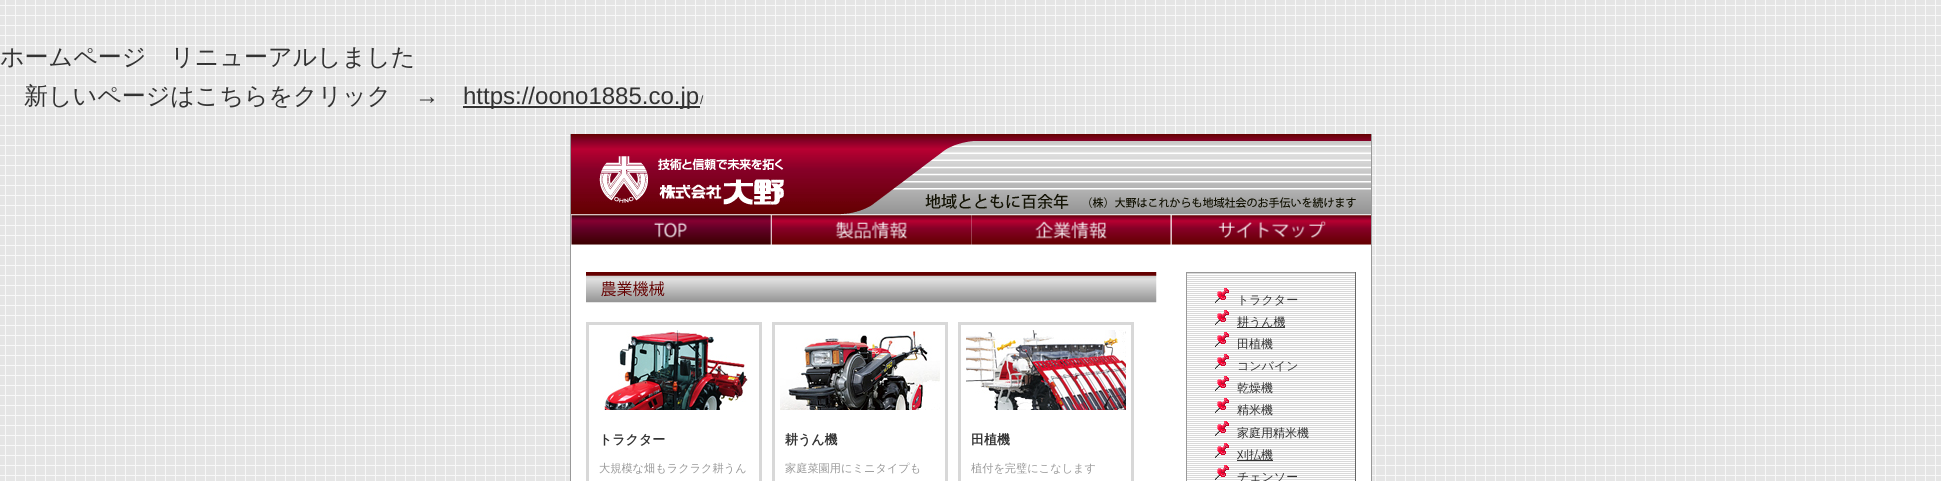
#include <cairo/cairo.h>
#include <math.h>
#include <stddef.h>

static cairo_t *cr;

static void use_color(int r, int g, int b) {
  cairo_set_source_rgb(cr, r / 255.0, g / 255.0, b / 255.0);
}

static void text(double x, double y, const char *s, const char *family, double size, int italic, int bold, int r, int g, int b) {
  cairo_select_font_face(cr, family, italic ? CAIRO_FONT_SLANT_ITALIC : CAIRO_FONT_SLANT_NORMAL,
    bold ? CAIRO_FONT_WEIGHT_BOLD : CAIRO_FONT_WEIGHT_NORMAL);
  cairo_set_font_size(cr, size);
  use_color(r, g, b);
  cairo_move_to(cr, x, y);
  cairo_show_text(cr, s);
}

static void box(double x, double y, double w, double h, int r, int g, int b) {
  use_color(r, g, b);
  cairo_rectangle(cr, x, y, w, h);
  cairo_fill(cr);
}

static void picture(const char *path, double x, double y, double w, double h) {
  cairo_surface_t *image = cairo_image_surface_create_from_png(path);
  cairo_save(cr);
  cairo_set_source_surface(cr, image, x, y);
  cairo_rectangle(cr, x, y, w, h);
  cairo_fill(cr);
  cairo_restore(cr);
  cairo_surface_destroy(image);
}

static void draw(void) {
  use_color(255, 255, 255);
  cairo_paint(cr);
  picture("img_01.png", 0, 0, 1941, 481);
  box(463, 106, 237, 2, 51, 51, 51);
  box(571, 245, 800, 236, 255, 255, 255);
  box(1371, 134, 1, 347, 153, 153, 153);
  box(570, 134, 1, 347, 153, 153, 153);
  picture("img_02.png", 571, 134, 800, 81);
  picture("img_03.png", 571, 215, 200, 30);
  picture("img_04.png", 771, 215, 200, 30);
  picture("img_05.png", 971, 215, 200, 30);
  picture("img_06.png", 1171, 215, 200, 30);
  picture("img_07.png", 586, 272, 571, 31);
  cairo_rectangle(cr, 587.5, 323.5, 173, 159);
  use_color(216, 216, 216);
  cairo_set_line_width(cr, 3);
  cairo_stroke(cr);
  picture("img_08.png", 603, 330, 145, 80);
  cairo_rectangle(cr, 773.5, 323.5, 173, 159);
  cairo_stroke(cr);
  picture("img_09.png", 780, 330, 160, 80);
  cairo_rectangle(cr, 959.5, 323.5, 173, 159);
  cairo_stroke(cr);
  picture("img_10.png", 966, 330, 160, 80);
  picture("img_11.png", 1187, 273, 168, 207);
  box(1186, 272, 170, 1, 153, 153, 153);
  box(1355, 272, 1, 209, 102, 102, 102);
  box(1186, 272, 1, 209, 153, 153, 153);
  picture("img_12.png", 1215, 288, 14, 15);
  picture("img_12.png", 1215, 310, 14, 15);
  box(1237, 327, 48, 1, 51, 51, 51);
  picture("img_12.png", 1215, 332, 14, 15);
  picture("img_12.png", 1215, 354, 14, 15);
  picture("img_12.png", 1215, 376, 14, 15);
  picture("img_12.png", 1215, 398, 14, 15);
  picture("img_13.png", 1215, 421, 14, 15);
  picture("img_13.png", 1215, 443, 14, 15);
  box(1237, 460, 36, 1, 51, 51, 51);
  picture("img_13.png", 1215, 465, 14, 15);
  text(0, 65, "ホームページ　リニューアルしました", "WenQuanYi Zen Hei Medium", 24, 0, 0, 51, 51, 51);
  text(24, 104, "新しいページはこちらをクリック", "WenQuanYi Zen Hei Medium", 24, 0, 0, 51, 51, 51);
  text(415, 104, "→", "Liberation Sans", 24, 0, 0, 51, 51, 51);
  text(463, 104, "https://oono1885.co.jp", "Liberation Sans", 24, 0, 0, 51, 51, 51);
  text(700, 104, "/", "Liberation Sans", 12, 0, 0, 51, 51, 51);
  text(599, 444, "トラクター", "WenQuanYi Zen Hei", 13, 0, 1, 51, 51, 51);
  text(599, 472, "大規模な畑もラクラク耕うん", "WenQuanYi Zen Hei Medium", 11.2, 0, 0, 153, 153, 153);
  text(785, 444, "耕うん機", "WenQuanYi Zen Hei", 13, 0, 1, 51, 51, 51);
  text(785, 472, "家庭菜園用にミニタイプも", "WenQuanYi Zen Hei Medium", 11.2, 0, 0, 153, 153, 153);
  text(971, 444, "田植機", "WenQuanYi Zen Hei", 13, 0, 1, 51, 51, 51);
  text(971, 472, "植付を完璧にこなします", "WenQuanYi Zen Hei Medium", 11.2, 0, 0, 153, 153, 153);
  text(1237, 304, "トラクター", "WenQuanYi Zen Hei Medium", 12, 0, 0, 51, 51, 51);
  text(1237, 326, "耕うん機", "WenQuanYi Zen Hei Medium", 12, 0, 0, 51, 51, 51);
  text(1237, 348, "田植機", "WenQuanYi Zen Hei Medium", 12, 0, 0, 51, 51, 51);
  text(1237, 370, "コンバイン", "WenQuanYi Zen Hei Medium", 12, 0, 0, 51, 51, 51);
  text(1237, 392, "乾燥機", "WenQuanYi Zen Hei Medium", 12, 0, 0, 51, 51, 51);
  text(1237, 414, "精米機", "WenQuanYi Zen Hei Medium", 12, 0, 0, 51, 51, 51);
  text(1237, 437, "家庭用精米機", "WenQuanYi Zen Hei Medium", 12, 0, 0, 51, 51, 51);
  text(1237, 459, "刈払機", "WenQuanYi Zen Hei Medium", 12, 0, 0, 51, 51, 51);
  text(1237, 481, "チェンソー", "WenQuanYi Zen Hei Medium", 12, 0, 0, 51, 51, 51);
}

int main(void) {
  cairo_surface_t *surface = cairo_image_surface_create(CAIRO_FORMAT_RGB24, 1941, 481);
  cr = cairo_create(surface);
  cairo_font_options_t *options = cairo_font_options_create();
  cairo_font_options_set_hint_metrics(options, CAIRO_HINT_METRICS_OFF);
  cairo_font_options_set_hint_style(options, CAIRO_HINT_STYLE_NONE);
  cairo_set_font_options(cr, options);
  cairo_set_miter_limit(cr, 4);
  draw();
  cairo_surface_write_to_png(surface, "out.png");
  cairo_font_options_destroy(options);
  cairo_destroy(cr);
  cairo_surface_destroy(surface);
  return 0;
}
